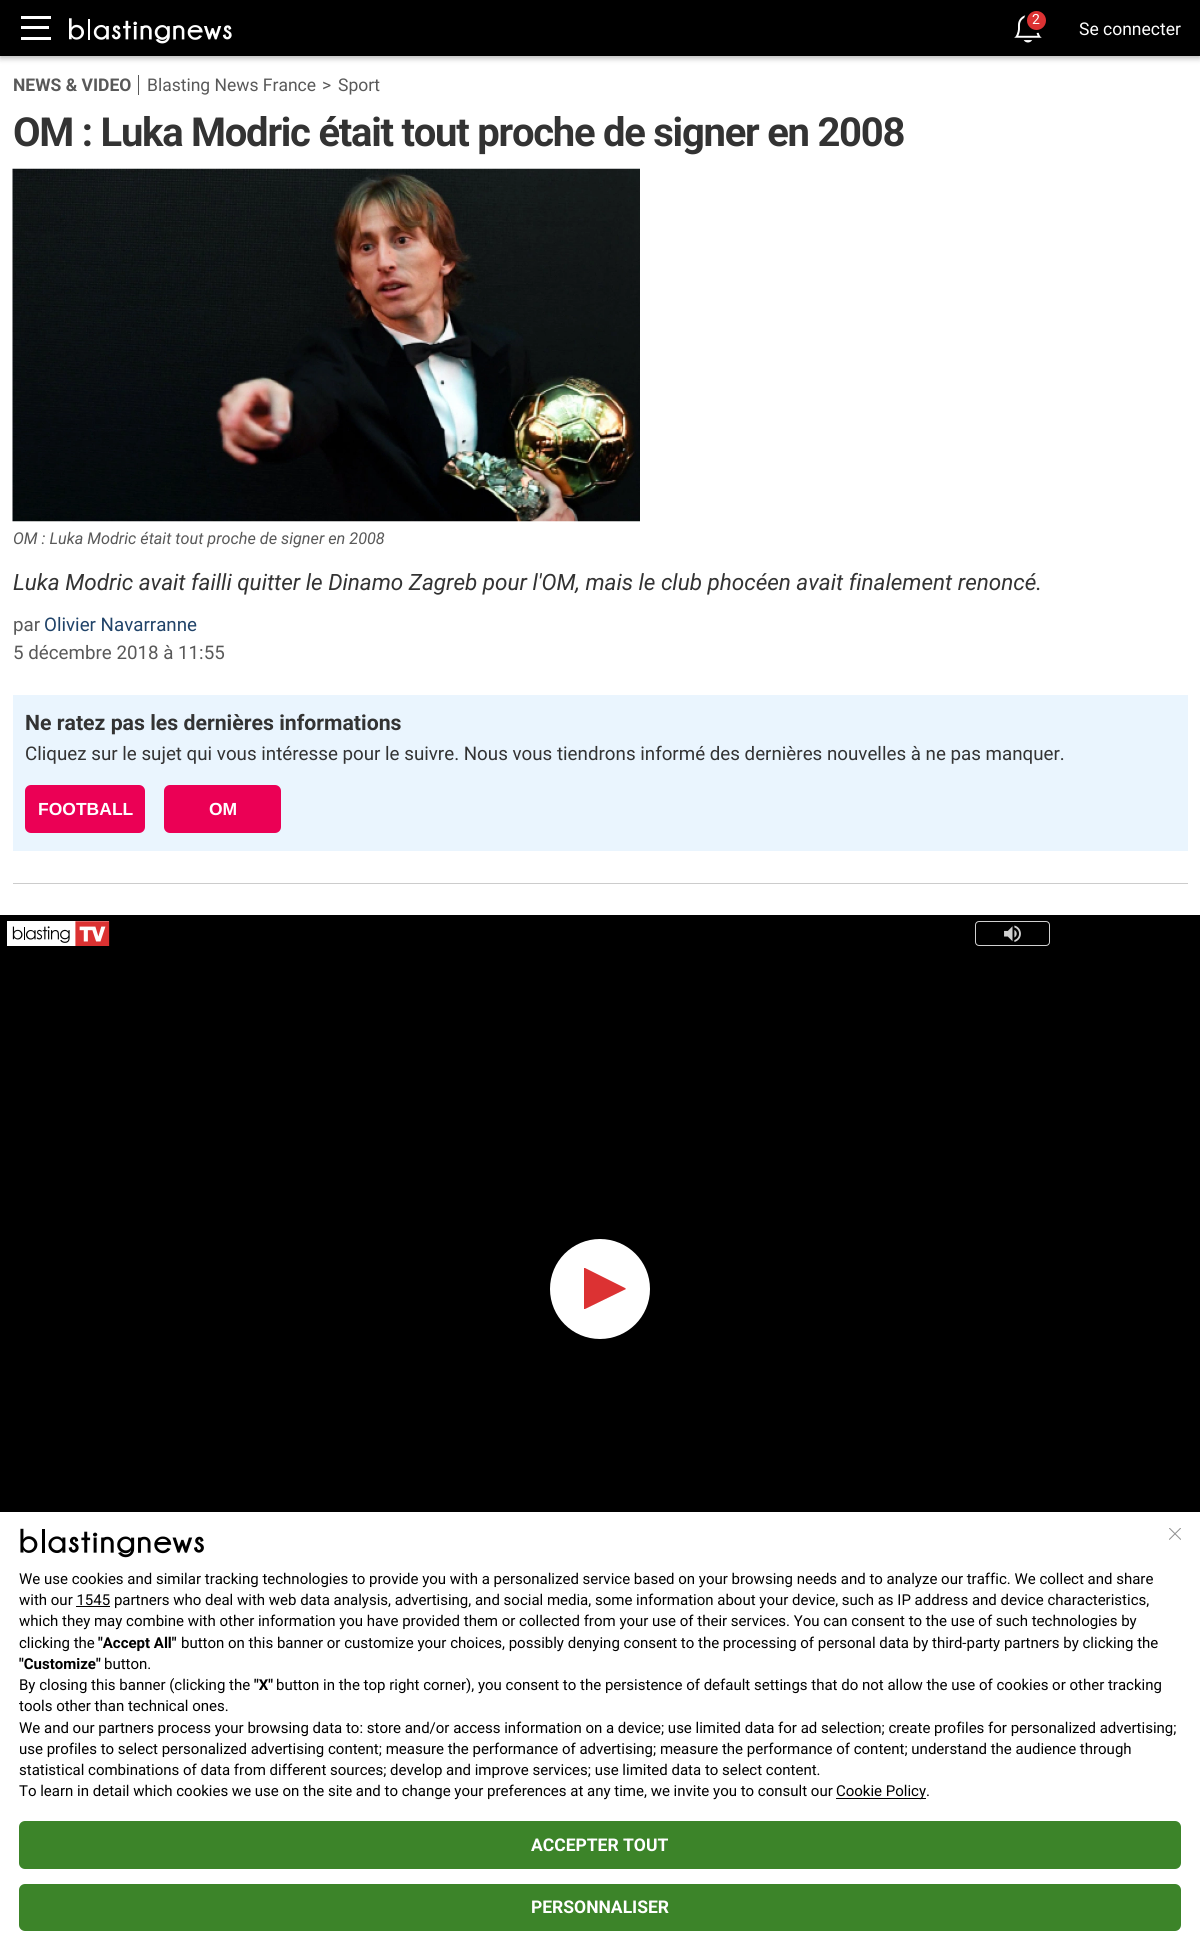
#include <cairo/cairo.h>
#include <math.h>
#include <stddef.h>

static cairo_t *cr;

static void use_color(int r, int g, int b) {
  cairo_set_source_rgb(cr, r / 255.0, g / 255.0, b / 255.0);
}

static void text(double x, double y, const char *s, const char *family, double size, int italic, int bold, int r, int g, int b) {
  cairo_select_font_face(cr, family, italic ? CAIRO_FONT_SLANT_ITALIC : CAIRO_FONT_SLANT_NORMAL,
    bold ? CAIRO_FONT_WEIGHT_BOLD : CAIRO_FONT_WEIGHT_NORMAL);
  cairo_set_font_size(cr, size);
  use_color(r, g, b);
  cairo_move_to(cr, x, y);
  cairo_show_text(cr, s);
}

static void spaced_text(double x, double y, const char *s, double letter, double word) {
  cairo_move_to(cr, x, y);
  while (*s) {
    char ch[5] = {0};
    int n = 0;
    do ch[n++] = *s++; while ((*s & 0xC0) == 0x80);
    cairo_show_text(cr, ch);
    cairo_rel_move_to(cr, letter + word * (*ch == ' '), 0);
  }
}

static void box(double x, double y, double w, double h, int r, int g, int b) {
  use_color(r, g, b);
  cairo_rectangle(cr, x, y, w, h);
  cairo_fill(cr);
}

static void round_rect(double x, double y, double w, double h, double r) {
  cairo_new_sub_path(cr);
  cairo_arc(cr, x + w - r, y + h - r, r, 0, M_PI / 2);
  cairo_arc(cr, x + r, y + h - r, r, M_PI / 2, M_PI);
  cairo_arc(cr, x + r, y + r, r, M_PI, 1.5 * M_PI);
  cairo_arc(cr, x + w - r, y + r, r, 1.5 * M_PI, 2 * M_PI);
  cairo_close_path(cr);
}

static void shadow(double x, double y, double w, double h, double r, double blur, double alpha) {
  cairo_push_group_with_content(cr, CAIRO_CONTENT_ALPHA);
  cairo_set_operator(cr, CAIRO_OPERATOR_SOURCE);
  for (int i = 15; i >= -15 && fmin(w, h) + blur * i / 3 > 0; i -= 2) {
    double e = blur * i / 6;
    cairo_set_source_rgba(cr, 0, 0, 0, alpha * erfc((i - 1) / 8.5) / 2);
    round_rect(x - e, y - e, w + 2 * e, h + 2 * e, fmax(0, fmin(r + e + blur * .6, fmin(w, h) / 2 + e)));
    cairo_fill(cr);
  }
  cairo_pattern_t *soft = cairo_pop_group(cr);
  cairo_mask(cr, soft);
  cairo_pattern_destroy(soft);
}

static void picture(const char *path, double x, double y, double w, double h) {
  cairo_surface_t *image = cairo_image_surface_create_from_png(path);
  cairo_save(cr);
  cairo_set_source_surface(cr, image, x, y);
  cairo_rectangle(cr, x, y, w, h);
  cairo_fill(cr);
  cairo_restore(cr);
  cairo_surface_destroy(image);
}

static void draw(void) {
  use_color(255, 255, 255);
  cairo_paint(cr);
  use_color(0, 0, 0);
  shadow(0, 1, 1200, 57, 0, 3, 0.3);
  box(0, 0, 1200, 56, 0, 0, 0);
  box(21, 16, 30, 3, 255, 255, 255);
  box(21, 26, 28, 3, 255, 255, 255);
  box(21, 37, 30, 3, 255, 255, 255);
  picture("img_01.png", 69, 18, 163, 26);
  picture("img_02.png", 1014, 15, 28, 28);
  use_color(220, 50, 51);
  cairo_arc(cr, 1036.5, 20.5, 11, 0, 2 * M_PI);
  cairo_fill_preserve(cr);
  use_color(0, 0, 0);
  cairo_set_line_width(cr, 3);
  cairo_stroke(cr);
  box(138, 75, 1, 20, 89, 89, 89);
  picture("img_03.png", 12, 168, 628, 354);
  box(13, 883, 1175, 1, 204, 204, 204);
  box(13, 695, 1175, 156, 234, 245, 254);
  use_color(235, 0, 85);
  round_rect(25, 785, 120, 48, 6);
  cairo_fill(cr);
  round_rect(164, 785, 117, 48, 6);
  cairo_fill(cr);
  box(0, 915, 1200, 597, 0, 0, 0);
  round_rect(975.5, 921.5, 74, 24, 3.5);
  use_color(209, 209, 209);
  cairo_set_line_width(cr, 1);
  cairo_stroke(cr);
  picture("img_04.png", 1004, 925, 17, 17);
  picture("img_05.png", 7, 921, 103, 25);
  use_color(255, 255, 255);
  cairo_arc(cr, 600, 1289, 50, 0, 2 * M_PI);
  cairo_fill(cr);
  use_color(220, 50, 51);
  cairo_new_path(cr);
  cairo_move_to(cr, 585, 1309);
  cairo_line_to(cr, 584, 1309);
  cairo_line_to(cr, 584, 1268);
  cairo_line_to(cr, 585, 1268);
  cairo_line_to(cr, 625, 1288);
  cairo_line_to(cr, 626, 1289);
  cairo_close_path(cr);
  cairo_fill(cr);
  picture("img_06.png", 20, 1528, 184, 30);
  picture("img_07.png", 1169, 1528, 12, 12);
  box(76, 1606, 34, 1, 0, 0, 0);
  box(836, 1798, 90, 1, 0, 0, 0);
  use_color(60, 132, 41);
  round_rect(19, 1821, 1162, 48, 6);
  cairo_fill(cr);
  round_rect(19, 1884, 1162, 47, 6);
  cairo_fill(cr);
  text(1032, 24, "2", "Roboto", 14, 0, 0, 255, 255, 255);
  text(1079, 35, "Se connecter", "Roboto", 17.5, 0, 0, 255, 255, 255);
  text(13, 91, "NEWS & VIDEO", "Roboto", 17.5, 0, 1, 89, 89, 89);
  text(147, 91, "Blasting News France", "Roboto", 17.5, 0, 0, 89, 89, 89);
  text(322, 91, ">", "Roboto", 17.5, 0, 0, 89, 89, 89);
  text(338, 91, "Sport", "Roboto", 17.5, 0, 0, 89, 89, 89);
  cairo_select_font_face(cr, "Roboto", CAIRO_FONT_SLANT_NORMAL, CAIRO_FONT_WEIGHT_BOLD);
  cairo_set_font_size(cr, 40);
  use_color(51, 51, 51);
  spaced_text(13, 146, "OM : Luka Modric était tout proche de signer en 2008", -1.25, 0);
  text(13, 544, "OM : Luka Modric était tout proche de signer en 2008", "Roboto", 16.25, 1, 0, 89, 89, 89);
  text(13, 590, "Luka Modric avait failli quitter le Dinamo Zagreb pour l'OM, mais le club phocéen avait finalement renoncé.", "Roboto", 22.5, 1, 0, 51, 51, 51);
  text(13, 631, "par", "Roboto", 18.75, 0, 0, 89, 89, 89);
  text(44, 631, "Olivier Navarranne", "Roboto", 18.75, 0, 0, 32, 67, 105);
  text(13, 659, "5 décembre 2018 à 11:55", "Roboto", 18.75, 0, 0, 89, 89, 89);
  text(25, 730, "Ne ratez pas les dernières informations", "Roboto", 21.25, 0, 1, 51, 51, 51);
  text(25, 760, "Cliquez sur le sujet qui vous intéresse pour le suivre. Nous vous tiendrons informé des dernières nouvelles à ne pas manquer.", "Roboto", 18.75, 0, 0, 51, 51, 51);
  text(38, 815, "FOOTBALL", "Liberation Sans", 17.5, 0, 1, 255, 255, 255);
  text(209, 815, "OM", "Liberation Sans", 17.5, 0, 1, 255, 255, 255);
  text(19, 1584, "We use cookies and similar tracking technologies to provide you with a personalized service based on your browsing needs and to analyze our traffic. We collect and share", "Roboto", 15, 0, 0, 0, 0, 0);
  text(19, 1605, "with our 1545 partners who deal with web data analysis, advertising, and social media, some information about your device, such as IP address and device characteristics,", "Roboto", 15, 0, 0, 0, 0, 0);
  text(19, 1626, "which they may combine with other information you have provided them or collected from your use of their services. You can consent to the use of such technologies by", "Roboto", 15, 0, 0, 0, 0, 0);
  text(19, 1648, "clicking the", "Roboto", 15, 0, 0, 0, 0, 0);
  text(98, 1648, "\"Accept All\"", "Roboto", 15, 0, 1, 0, 0, 0);
  text(181, 1648, "button on this banner or customize your choices, possibly denying consent to the processing of personal data by third-party partners by clicking the", "Roboto", 15, 0, 0, 0, 0, 0);
  text(19, 1669, "\"Customize\"", "Roboto", 15, 0, 1, 0, 0, 0);
  text(104, 1669, "button.", "Roboto", 15, 0, 0, 0, 0, 0);
  text(19, 1690, "By closing this banner (clicking the", "Roboto", 15, 0, 0, 0, 0, 0);
  text(254, 1690, "\"X\"", "Roboto", 15, 0, 1, 0, 0, 0);
  text(276, 1690, "button in the top right corner), you consent to the persistence of default settings that do not allow the use of cookies or other tracking", "Roboto", 15, 0, 0, 0, 0, 0);
  text(19, 1711, "tools other than technical ones.", "Roboto", 15, 0, 0, 0, 0, 0);
  text(19, 1733, "We and our partners process your browsing data to: store and/or access information on a device; use limited data for ad selection; create profiles for personalized advertising;", "Roboto", 15, 0, 0, 0, 0, 0);
  text(19, 1754, "use profiles to select personalized advertising content; measure the performance of advertising; measure the performance of content; understand the audience through", "Roboto", 15, 0, 0, 0, 0, 0);
  text(19, 1775, "statistical combinations of data from different sources; develop and improve services; use limited data to select content.", "Roboto", 15, 0, 0, 0, 0, 0);
  text(19, 1796, "To learn in detail which cookies we use on the site and to change your preferences at any time, we invite you to consult our", "Roboto", 15, 0, 0, 0, 0, 0);
  text(836, 1796, "Cookie Policy.", "Roboto", 15, 0, 0, 0, 0, 0);
  text(531, 1851, "ACCEPTER TOUT", "Roboto", 17.5, 0, 1, 255, 255, 255);
  text(531, 1913, "PERSONNALISER", "Roboto", 17.5, 0, 1, 255, 255, 255);
}

int main(void) {
  cairo_surface_t *surface = cairo_image_surface_create(CAIRO_FORMAT_RGB24, 1200, 1958);
  cr = cairo_create(surface);
  cairo_font_options_t *options = cairo_font_options_create();
  cairo_font_options_set_hint_metrics(options, CAIRO_HINT_METRICS_OFF);
  cairo_font_options_set_hint_style(options, CAIRO_HINT_STYLE_NONE);
  cairo_set_font_options(cr, options);
  cairo_set_miter_limit(cr, 4);
  draw();
  cairo_surface_write_to_png(surface, "out.png");
  cairo_font_options_destroy(options);
  cairo_destroy(cr);
  cairo_surface_destroy(surface);
  return 0;
}
